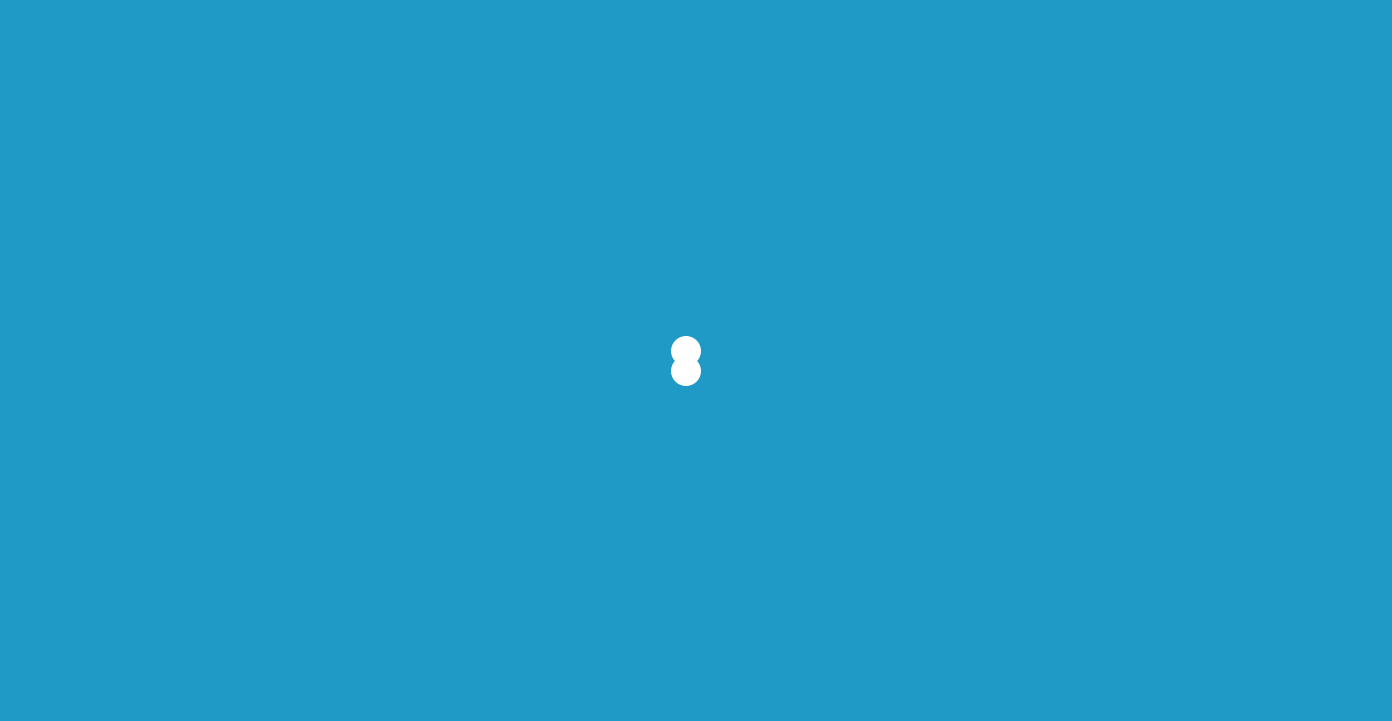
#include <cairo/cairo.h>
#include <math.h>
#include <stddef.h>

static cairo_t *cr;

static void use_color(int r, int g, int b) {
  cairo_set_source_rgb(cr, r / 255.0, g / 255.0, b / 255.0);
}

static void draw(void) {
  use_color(31, 154, 198);
  cairo_paint(cr);
  use_color(255, 255, 255);
  cairo_arc(cr, 686, 351, 15, 0, 2 * M_PI);
  cairo_fill(cr);
  cairo_arc(cr, 686, 371, 15, 0, 2 * M_PI);
  cairo_fill(cr);
}

int main(void) {
  cairo_surface_t *surface = cairo_image_surface_create(CAIRO_FORMAT_RGB24, 1392, 721);
  cr = cairo_create(surface);
  cairo_font_options_t *options = cairo_font_options_create();
  cairo_font_options_set_hint_metrics(options, CAIRO_HINT_METRICS_OFF);
  cairo_font_options_set_hint_style(options, CAIRO_HINT_STYLE_NONE);
  cairo_set_font_options(cr, options);
  cairo_set_miter_limit(cr, 4);
  draw();
  cairo_surface_write_to_png(surface, "out.png");
  cairo_font_options_destroy(options);
  cairo_destroy(cr);
  cairo_surface_destroy(surface);
  return 0;
}
